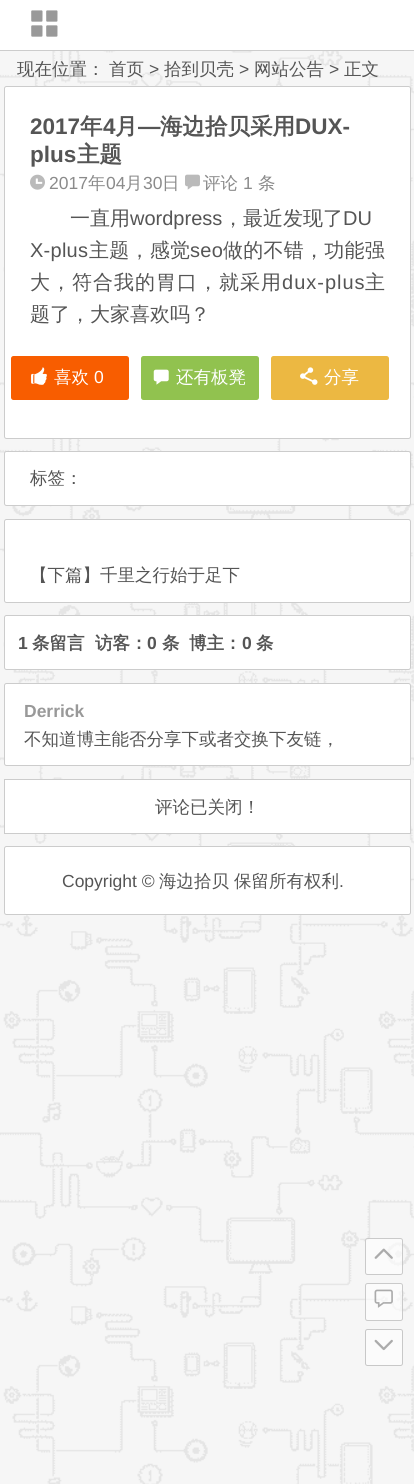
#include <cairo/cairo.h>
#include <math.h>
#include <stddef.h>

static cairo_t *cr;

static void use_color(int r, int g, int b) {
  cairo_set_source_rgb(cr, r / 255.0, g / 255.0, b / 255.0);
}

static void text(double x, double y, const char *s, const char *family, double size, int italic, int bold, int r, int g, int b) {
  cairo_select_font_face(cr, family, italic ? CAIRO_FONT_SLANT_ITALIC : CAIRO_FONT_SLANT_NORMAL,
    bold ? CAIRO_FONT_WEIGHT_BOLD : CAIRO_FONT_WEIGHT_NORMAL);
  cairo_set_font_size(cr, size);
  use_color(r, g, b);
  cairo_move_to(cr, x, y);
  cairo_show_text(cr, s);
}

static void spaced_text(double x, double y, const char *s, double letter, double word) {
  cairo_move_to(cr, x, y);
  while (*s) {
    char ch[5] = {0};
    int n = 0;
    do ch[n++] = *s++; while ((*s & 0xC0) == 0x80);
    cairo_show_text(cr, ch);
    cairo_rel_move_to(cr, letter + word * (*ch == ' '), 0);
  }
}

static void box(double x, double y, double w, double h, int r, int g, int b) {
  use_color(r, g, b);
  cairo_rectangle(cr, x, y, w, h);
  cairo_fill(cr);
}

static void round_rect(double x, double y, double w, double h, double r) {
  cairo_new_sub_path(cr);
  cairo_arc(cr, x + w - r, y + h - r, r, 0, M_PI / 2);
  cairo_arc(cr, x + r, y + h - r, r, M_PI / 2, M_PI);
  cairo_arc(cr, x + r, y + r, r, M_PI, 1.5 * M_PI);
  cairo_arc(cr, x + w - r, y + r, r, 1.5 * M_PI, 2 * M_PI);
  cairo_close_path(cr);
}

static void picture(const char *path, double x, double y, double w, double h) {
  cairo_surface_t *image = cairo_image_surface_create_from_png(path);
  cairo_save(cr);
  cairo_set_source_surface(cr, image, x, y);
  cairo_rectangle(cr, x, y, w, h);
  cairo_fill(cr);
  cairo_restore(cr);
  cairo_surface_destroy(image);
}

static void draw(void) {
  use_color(255, 255, 255);
  cairo_paint(cr);
  picture("img_01.png", 0, 51, 414, 1433);
  box(0, 50, 414, 1, 204, 204, 204);
  picture("img_02.png", 31, 10, 27, 27);
  use_color(255, 255, 255);
  round_rect(4.5, 86.5, 406, 352, 2);
  cairo_fill_preserve(cr);
  use_color(204, 204, 204);
  cairo_set_line_width(cr, 1);
  cairo_stroke(cr);
  picture("img_03.png", 30, 174, 15, 16);
  picture("img_04.png", 185, 174, 15, 16);
  use_color(248, 93, 0);
  round_rect(11, 356, 118, 44, 2.5);
  cairo_fill(cr);
  picture("img_05.png", 31, 367, 16, 18);
  use_color(145, 194, 79);
  round_rect(141, 356, 118, 44, 2.5);
  cairo_fill(cr);
  picture("img_06.png", 153, 369, 16, 16);
  use_color(236, 184, 66);
  round_rect(271, 356, 118, 44, 2.5);
  cairo_fill(cr);
  picture("img_07.png", 300, 367, 18, 18);
  use_color(255, 255, 255);
  round_rect(4.5, 451.5, 406, 54, 2);
  cairo_fill_preserve(cr);
  use_color(204, 204, 204);
  cairo_stroke(cr);
  use_color(255, 255, 255);
  round_rect(4.5, 519.5, 406, 83, 2);
  cairo_fill_preserve(cr);
  use_color(204, 204, 204);
  cairo_stroke(cr);
  use_color(255, 255, 255);
  round_rect(4.5, 615.5, 406, 54, 2);
  cairo_fill_preserve(cr);
  use_color(204, 204, 204);
  cairo_stroke(cr);
  use_color(255, 255, 255);
  round_rect(4.5, 683.5, 406, 82, 2);
  cairo_fill_preserve(cr);
  use_color(204, 204, 204);
  cairo_stroke(cr);
  use_color(255, 255, 255);
  cairo_rectangle(cr, 4.5, 779.5, 406, 54);
  cairo_fill_preserve(cr);
  use_color(204, 204, 204);
  cairo_stroke(cr);
  use_color(255, 255, 255);
  round_rect(4.5, 846.5, 406, 68, 2);
  cairo_fill_preserve(cr);
  use_color(204, 204, 204);
  cairo_stroke(cr);
  cairo_set_source_rgba(cr, 1, 1, 1, 0.6);
  round_rect(365, 1238, 38, 37, 2.5);
  cairo_fill(cr);
  round_rect(365.5, 1238.5, 37, 36, 2);
  cairo_set_source_rgba(cr, 0.667, 0.667, 0.667, 0.6);
  cairo_stroke(cr);
  picture("img_08.png", 374, 1248, 19, 11);
  cairo_set_source_rgba(cr, 1, 1, 1, 0.6);
  round_rect(365, 1283, 38, 38, 2.5);
  cairo_fill(cr);
  round_rect(365.5, 1283.5, 37, 37, 2);
  cairo_set_source_rgba(cr, 0.667, 0.667, 0.667, 0.6);
  cairo_stroke(cr);
  picture("img_09.png", 374, 1289, 19, 19);
  use_color(251, 251, 251);
  round_rect(365.5, 1329.5, 37, 36, 2);
  cairo_fill_preserve(cr);
  use_color(200, 200, 200);
  cairo_stroke(cr);
  picture("img_10.png", 374, 1339, 19, 12);
  text(17, 75, "现在位置：", "WenQuanYi Zen Hei Medium", 17.5, 0, 0, 85, 85, 85);
  text(109, 75, "首页", "WenQuanYi Zen Hei Medium", 17.5, 0, 0, 85, 85, 85);
  text(149, 75, ">", "Liberation Sans", 17.5, 0, 0, 85, 85, 85);
  text(164, 75, "拾到贝壳", "WenQuanYi Zen Hei Medium", 17.5, 0, 0, 85, 85, 85);
  text(239, 75, ">", "Liberation Sans", 17.5, 0, 0, 85, 85, 85);
  text(254, 75, "网站公告", "WenQuanYi Zen Hei Medium", 17.5, 0, 0, 85, 85, 85);
  text(329, 75, ">", "Liberation Sans", 17.5, 0, 0, 85, 85, 85);
  text(344, 75, "正文", "WenQuanYi Zen Hei Medium", 17.5, 0, 0, 85, 85, 85);
  text(30, 134, "2017", "Liberation Sans", 22.5, 0, 1, 85, 85, 85);
  text(80, 134, "年", "WenQuanYi Zen Hei", 22.5, 0, 1, 85, 85, 85);
  text(103, 134, "4", "Liberation Sans", 22.5, 0, 1, 85, 85, 85);
  text(115, 134, "月", "WenQuanYi Zen Hei", 22.5, 0, 1, 85, 85, 85);
  text(138, 134, "—", "Liberation Sans", 22.5, 0, 1, 85, 85, 85);
  text(160, 134, "海边拾贝采用", "WenQuanYi Zen Hei", 22.5, 0, 1, 85, 85, 85);
  text(295, 134, "DUX-", "Liberation Sans", 22.5, 0, 1, 85, 85, 85);
  text(30, 162, "plus", "Liberation Sans", 22.5, 0, 1, 85, 85, 85);
  text(77, 162, "主题", "WenQuanYi Zen Hei", 22.5, 0, 1, 85, 85, 85);
  text(49, 189, "2017", "Liberation Sans", 17.5, 0, 0, 139, 139, 139);
  text(88, 189, "年", "WenQuanYi Zen Hei Medium", 17.5, 0, 0, 139, 139, 139);
  text(106, 189, "04", "Liberation Sans", 17.5, 0, 0, 139, 139, 139);
  text(125, 189, "月", "WenQuanYi Zen Hei Medium", 17.5, 0, 0, 139, 139, 139);
  text(143, 189, "30", "Liberation Sans", 17.5, 0, 0, 139, 139, 139);
  text(162, 189, "日", "WenQuanYi Zen Hei Medium", 17.5, 0, 0, 139, 139, 139);
  text(203, 189, "评论", "WenQuanYi Zen Hei Medium", 17.5, 0, 0, 139, 139, 139);
  text(243, 189, "1", "Liberation Sans", 17.5, 0, 0, 139, 139, 139);
  text(258, 189, "条", "WenQuanYi Zen Hei Medium", 17.5, 0, 0, 139, 139, 139);
  text(70, 225, "一直用", "WenQuanYi Zen Hei Medium", 20, 0, 0, 85, 85, 85);
  text(130, 225, "wordpress", "Liberation Sans", 20, 0, 0, 85, 85, 85);
  text(223, 225, "，最近发现了", "WenQuanYi Zen Hei Medium", 20, 0, 0, 85, 85, 85);
  text(343, 225, "DU", "Liberation Sans", 20, 0, 0, 85, 85, 85);
  spaced_text(30, 257, "X-plus", 0.25, 0);
  cairo_select_font_face(cr, "WenQuanYi Zen Hei Medium", CAIRO_FONT_SLANT_NORMAL, CAIRO_FONT_WEIGHT_NORMAL);
  spaced_text(89, 257, "主题，感觉", 0.25, 0);
  cairo_select_font_face(cr, "Liberation Sans", CAIRO_FONT_SLANT_NORMAL, CAIRO_FONT_WEIGHT_NORMAL);
  spaced_text(190, 257, "seo", 0.25, 0);
  cairo_select_font_face(cr, "WenQuanYi Zen Hei Medium", CAIRO_FONT_SLANT_NORMAL, CAIRO_FONT_WEIGHT_NORMAL);
  spaced_text(223, 257, "做的不错，功能强", 0.25, 0);
  spaced_text(30, 289, "大，符合我的胃口，就采用", 1, 0);
  cairo_select_font_face(cr, "Liberation Sans", CAIRO_FONT_SLANT_NORMAL, CAIRO_FONT_WEIGHT_NORMAL);
  spaced_text(282, 289, "dux-plus", 1, 0);
  cairo_select_font_face(cr, "WenQuanYi Zen Hei Medium", CAIRO_FONT_SLANT_NORMAL, CAIRO_FONT_WEIGHT_NORMAL);
  spaced_text(365, 289, "主", 1, 0);
  text(30, 321, "题了，大家喜欢吗？", "WenQuanYi Zen Hei Medium", 20, 0, 0, 85, 85, 85);
  text(54, 383, "喜欢", "WenQuanYi Zen Hei Medium", 17.5, 0, 0, 255, 255, 255);
  text(94, 383, "0", "Liberation Sans", 17.5, 0, 0, 255, 255, 255);
  text(176, 383, "还有板凳", "WenQuanYi Zen Hei Medium", 17.5, 0, 0, 255, 255, 255);
  text(324, 383, "分享", "WenQuanYi Zen Hei Medium", 17.5, 0, 0, 255, 255, 255);
  text(30, 484, "标签：", "WenQuanYi Zen Hei Medium", 17.5, 0, 0, 85, 85, 85);
  text(30, 581, "【下篇】千里之行始于足下", "WenQuanYi Zen Hei Medium", 17.5, 0, 0, 85, 85, 85);
  text(18, 649, "1", "Liberation Sans", 17.5, 0, 1, 85, 85, 85);
  text(32, 649, "条留言", "WenQuanYi Zen Hei", 17.5, 0, 1, 85, 85, 85);
  text(95, 649, "访客：", "WenQuanYi Zen Hei", 17.5, 0, 1, 85, 85, 85);
  text(147, 649, "0", "Liberation Sans", 17.5, 0, 1, 85, 85, 85);
  text(162, 649, "条", "WenQuanYi Zen Hei", 17.5, 0, 1, 85, 85, 85);
  text(189, 649, "博主：", "WenQuanYi Zen Hei", 17.5, 0, 1, 85, 85, 85);
  text(242, 649, "0", "Liberation Sans", 17.5, 0, 1, 85, 85, 85);
  text(256, 649, "条", "WenQuanYi Zen Hei", 17.5, 0, 1, 85, 85, 85);
  text(24, 717, "Derrick", "Liberation Sans", 17.5, 0, 1, 153, 153, 153);
  text(24, 745, "不知道博主能否分享下或者交换下友链，", "WenQuanYi Zen Hei Medium", 17.5, 0, 0, 85, 85, 85);
  text(155, 813, "评论已关闭！", "WenQuanYi Zen Hei Medium", 17.5, 0, 0, 85, 85, 85);
  text(62, 887, "Copyright ©", "Liberation Sans", 17.5, 0, 0, 85, 85, 85);
  text(159, 887, "海边拾贝", "WenQuanYi Zen Hei Medium", 17.5, 0, 0, 85, 85, 85);
  text(234, 887, "保留所有权利", "WenQuanYi Zen Hei Medium", 17.5, 0, 0, 85, 85, 85);
  text(339, 887, ".", "Liberation Sans", 17.5, 0, 0, 85, 85, 85);
}

int main(void) {
  cairo_surface_t *surface = cairo_image_surface_create(CAIRO_FORMAT_RGB24, 414, 1484);
  cr = cairo_create(surface);
  cairo_font_options_t *options = cairo_font_options_create();
  cairo_font_options_set_hint_metrics(options, CAIRO_HINT_METRICS_OFF);
  cairo_font_options_set_hint_style(options, CAIRO_HINT_STYLE_NONE);
  cairo_set_font_options(cr, options);
  cairo_set_miter_limit(cr, 4);
  draw();
  cairo_surface_write_to_png(surface, "out.png");
  cairo_font_options_destroy(options);
  cairo_destroy(cr);
  cairo_surface_destroy(surface);
  return 0;
}
